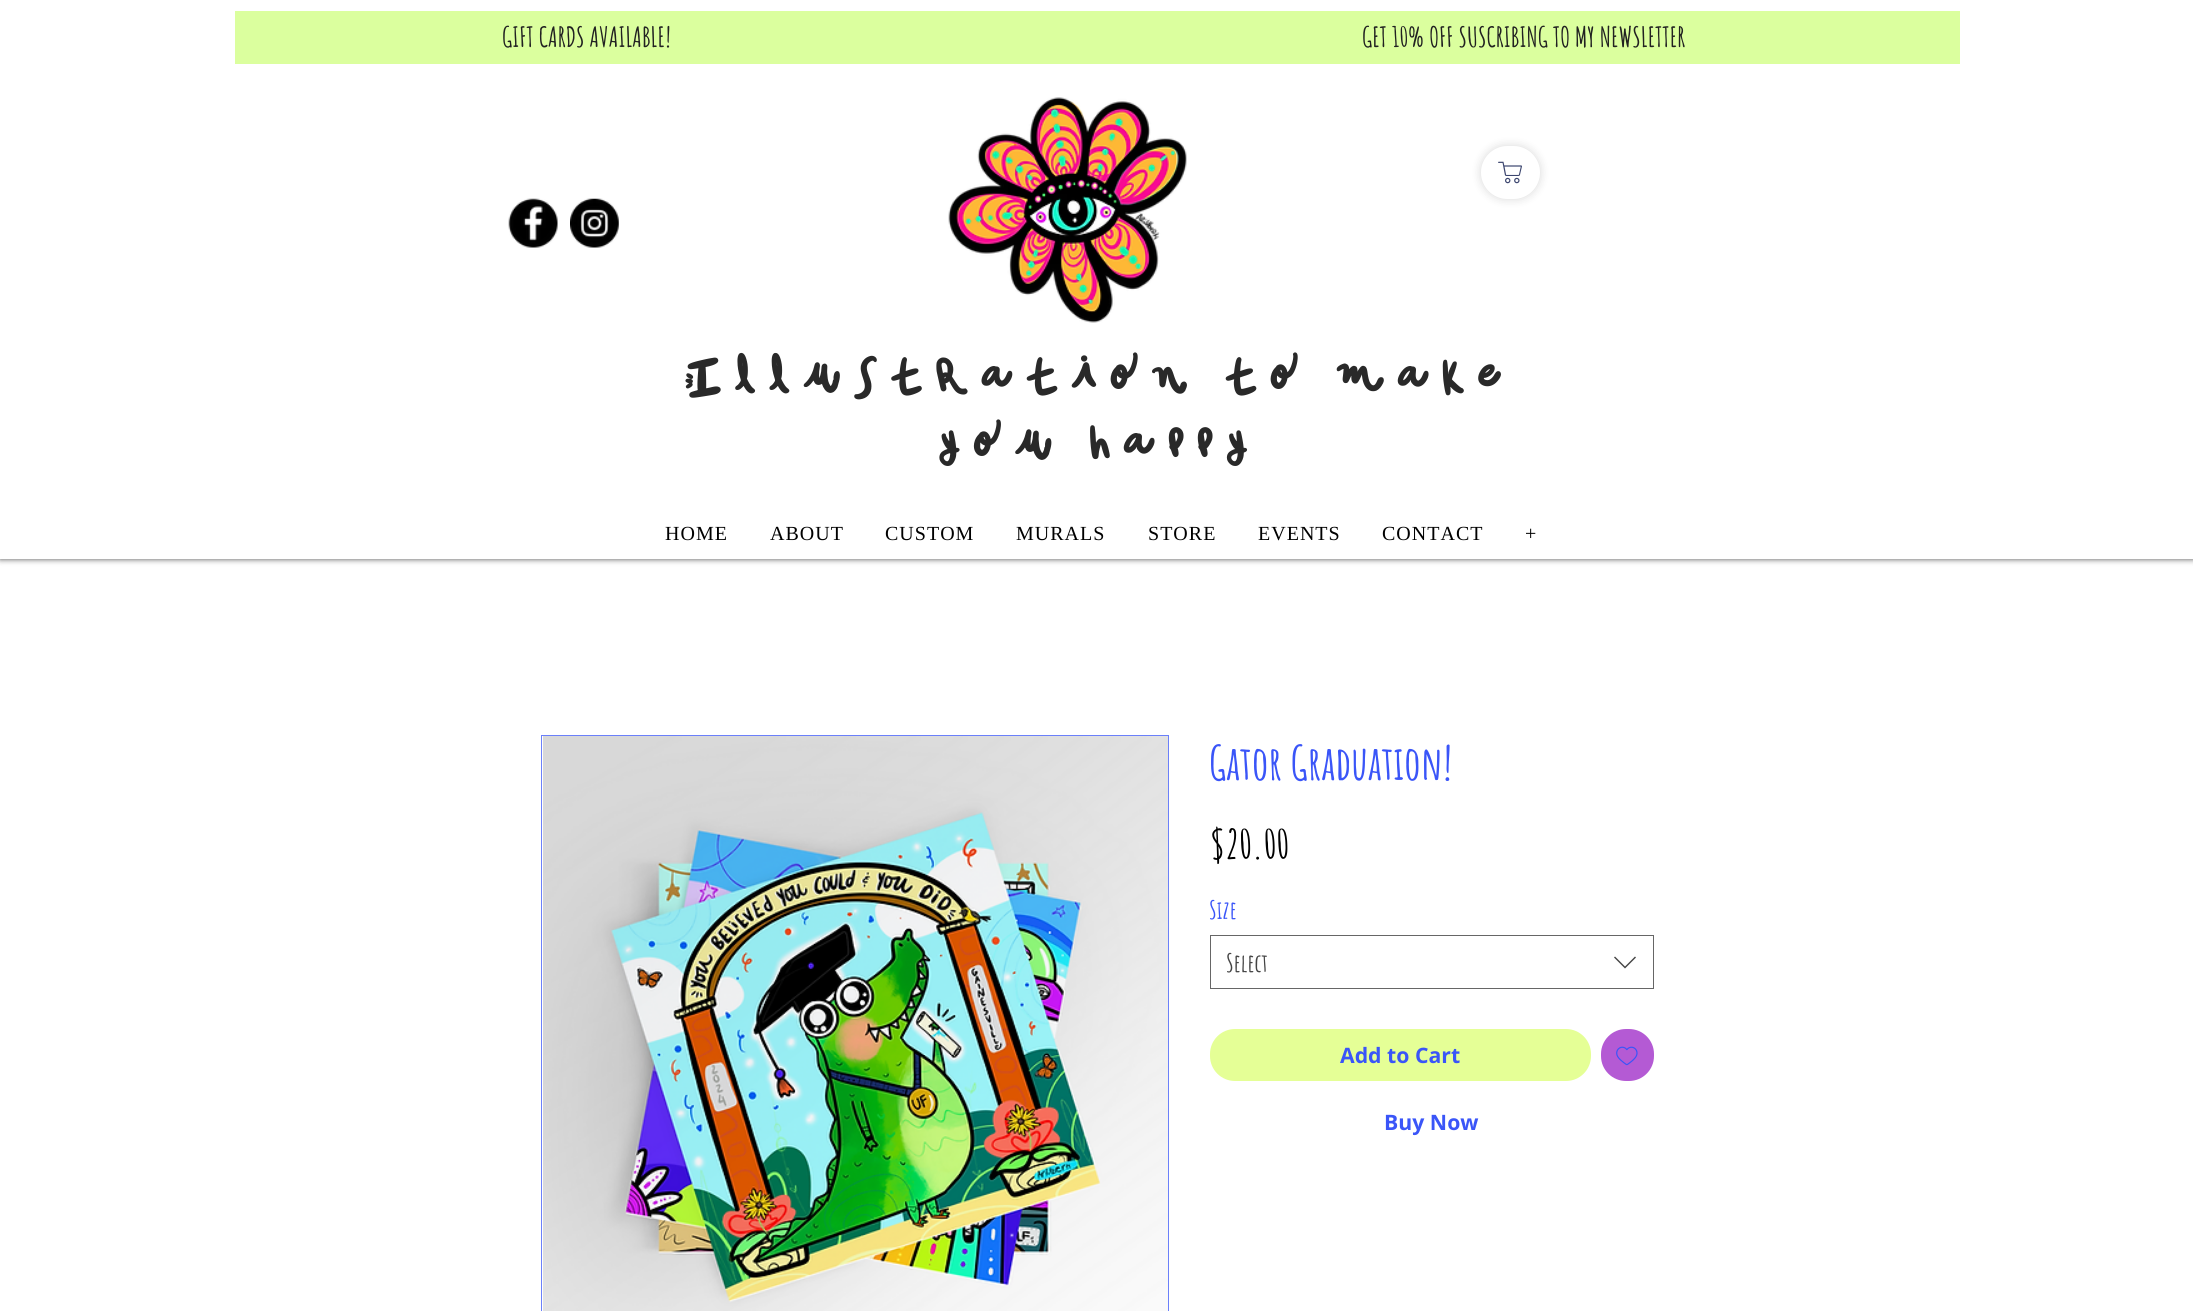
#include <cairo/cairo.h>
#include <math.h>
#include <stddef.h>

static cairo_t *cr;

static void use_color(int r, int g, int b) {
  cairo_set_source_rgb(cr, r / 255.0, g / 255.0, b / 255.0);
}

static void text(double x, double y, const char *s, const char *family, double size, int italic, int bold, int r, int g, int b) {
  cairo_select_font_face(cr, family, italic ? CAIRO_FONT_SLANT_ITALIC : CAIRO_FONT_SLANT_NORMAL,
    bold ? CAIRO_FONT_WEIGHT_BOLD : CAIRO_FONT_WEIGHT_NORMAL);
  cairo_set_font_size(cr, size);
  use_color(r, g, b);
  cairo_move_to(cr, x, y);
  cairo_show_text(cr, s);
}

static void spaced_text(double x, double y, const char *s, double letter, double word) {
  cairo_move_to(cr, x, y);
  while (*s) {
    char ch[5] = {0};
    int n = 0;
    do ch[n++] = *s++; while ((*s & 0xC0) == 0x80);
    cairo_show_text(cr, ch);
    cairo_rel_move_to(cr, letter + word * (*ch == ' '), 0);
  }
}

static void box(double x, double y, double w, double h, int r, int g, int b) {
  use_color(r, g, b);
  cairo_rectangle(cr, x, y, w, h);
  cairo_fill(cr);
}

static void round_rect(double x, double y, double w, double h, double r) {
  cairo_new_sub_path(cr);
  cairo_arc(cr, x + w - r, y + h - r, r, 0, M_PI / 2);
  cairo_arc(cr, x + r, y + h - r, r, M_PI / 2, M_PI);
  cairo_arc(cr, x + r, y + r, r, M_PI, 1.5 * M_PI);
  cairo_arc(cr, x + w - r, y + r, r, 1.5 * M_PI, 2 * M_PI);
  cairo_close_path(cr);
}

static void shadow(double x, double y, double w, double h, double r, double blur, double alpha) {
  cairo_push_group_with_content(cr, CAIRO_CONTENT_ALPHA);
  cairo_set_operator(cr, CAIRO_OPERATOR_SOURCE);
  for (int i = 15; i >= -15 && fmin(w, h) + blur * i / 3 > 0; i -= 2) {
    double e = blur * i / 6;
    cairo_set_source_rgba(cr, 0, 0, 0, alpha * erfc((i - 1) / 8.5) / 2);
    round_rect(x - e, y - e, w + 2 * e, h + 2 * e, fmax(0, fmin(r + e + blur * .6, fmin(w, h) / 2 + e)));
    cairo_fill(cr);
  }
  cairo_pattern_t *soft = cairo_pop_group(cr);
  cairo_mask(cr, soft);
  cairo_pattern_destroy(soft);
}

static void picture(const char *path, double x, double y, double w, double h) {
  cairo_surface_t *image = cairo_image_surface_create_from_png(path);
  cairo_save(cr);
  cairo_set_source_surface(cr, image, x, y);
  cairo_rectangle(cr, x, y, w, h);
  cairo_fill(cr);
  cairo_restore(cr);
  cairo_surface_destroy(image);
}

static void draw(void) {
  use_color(255, 255, 255);
  cairo_paint(cr);
  cairo_save(cr);
  cairo_set_fill_rule(cr, CAIRO_FILL_RULE_EVEN_ODD);
  cairo_new_path(cr);
  cairo_move_to(cr, 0, 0);
  cairo_line_to(cr, 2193, 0);
  cairo_line_to(cr, 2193, 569);
  cairo_line_to(cr, 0, 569);
  cairo_close_path(cr);
  cairo_move_to(cr, 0, 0);
  cairo_line_to(cr, 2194, 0);
  cairo_line_to(cr, 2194, 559);
  cairo_line_to(cr, 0, 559);
  cairo_close_path(cr);
  cairo_clip(cr);
  use_color(0, 0, 0);
  shadow(0, 0, 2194, 559, 0, 3, 0.7);
  cairo_restore(cr);
  box(235, 11, 1725, 53, 219, 255, 158);
  picture("img_01.png", 948, 97, 239, 226);
  use_color(0, 0, 0);
  shadow(1481, 146, 59, 53, 26.5, 5, 0.15);
  use_color(255, 255, 255);
  round_rect(1481, 146, 59, 53, 26.5);
  cairo_fill(cr);
  picture("img_02.png", 1498, 161, 24, 23);
  picture("img_03.png", 508, 198, 50, 50);
  picture("img_04.png", 570, 198, 49, 50);
  box(650, 558, 904, 1, 255, 255, 255);
  cairo_rectangle(cr, 541.5, 735.5, 627, 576);
  use_color(107, 128, 250);
  cairo_set_line_width(cr, 1);
  cairo_stroke(cr);
  picture("img_05.png", 543, 736, 625, 575);
  cairo_rectangle(cr, 1210.5, 935.5, 443, 53);
  use_color(102, 102, 102);
  cairo_stroke(cr);
  use_color(68, 68, 68);
  cairo_set_fill_rule(cr, CAIRO_FILL_RULE_EVEN_ODD);
  cairo_new_path(cr);
  cairo_move_to(cr, 1635, 956.5);
  cairo_line_to(cr, 1636, 957.5);
  cairo_line_to(cr, 1625, 968.5);
  cairo_line_to(cr, 1614, 957.5);
  cairo_line_to(cr, 1615, 956.5);
  cairo_line_to(cr, 1625, 966.5);
  cairo_close_path(cr);
  cairo_fill(cr);
  use_color(229, 255, 150);
  round_rect(1210, 1029, 381, 52, 25);
  cairo_fill(cr);
  use_color(180, 90, 212);
  round_rect(1601, 1029, 53, 52, 25);
  cairo_fill(cr);
  picture("img_06.png", 1616, 1046, 22, 20);
  text(502, 47, "GIFT CARDS AVAILABLE!", "Amatic SC", 27.5, 0, 1, 33, 33, 33);
  text(1362, 47, "GET 10% OFF SUSCRIBING TO MY NEWSLETTER", "Amatic SC", 27.5, 0, 1, 33, 33, 33);
  cairo_select_font_face(cr, "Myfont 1", CAIRO_FONT_SLANT_NORMAL, CAIRO_FONT_WEIGHT_BOLD);
  cairo_set_font_size(cr, 61.25);
  use_color(41, 41, 41);
  spaced_text(682, 396, "Illustration to make", 9.2, 0);
  spaced_text(936, 463, "you happy", 9.2, 0);
  cairo_select_font_face(cr, "Liberation Serif", CAIRO_FONT_SLANT_NORMAL, CAIRO_FONT_WEIGHT_NORMAL);
  cairo_set_font_size(cr, 20);
  use_color(0, 0, 0);
  spaced_text(665, 540, "HOME", 1, 0);
  spaced_text(770, 540, "ABOUT", 1, 0);
  spaced_text(885, 540, "CUSTOM", 1, 0);
  spaced_text(1016, 540, "MURALS", 1, 0);
  spaced_text(1148, 540, "STORE", 1, 0);
  spaced_text(1258, 540, "EVENTS", 1, 0);
  spaced_text(1382, 540, "CONTACT", 1, 0);
  spaced_text(1525, 540, "+", 1, 0);
  text(1209, 780, "Gator Graduation!", "Amatic SC", 46.25, 0, 1, 58, 85, 248);
  text(1209, 859, "$20.00", "Amatic SC", 40, 0, 1, 0, 0, 0);
  text(1209, 919, "Size", "Amatic SC", 25, 0, 1, 58, 85, 248);
  text(1226, 972, "Select", "Amatic SC", 25, 0, 1, 68, 68, 68);
  text(1340, 1063, "Add to Cart", "Open Sans", 21.25, 0, 1, 58, 85, 248);
  text(1384, 1130, "Buy Now", "Open Sans", 21.25, 0, 1, 58, 85, 248);
}

int main(void) {
  cairo_surface_t *surface = cairo_image_surface_create(CAIRO_FORMAT_RGB24, 2193, 1311);
  cr = cairo_create(surface);
  cairo_font_options_t *options = cairo_font_options_create();
  cairo_font_options_set_hint_metrics(options, CAIRO_HINT_METRICS_OFF);
  cairo_font_options_set_hint_style(options, CAIRO_HINT_STYLE_NONE);
  cairo_set_font_options(cr, options);
  cairo_set_miter_limit(cr, 4);
  draw();
  cairo_surface_write_to_png(surface, "out.png");
  cairo_font_options_destroy(options);
  cairo_destroy(cr);
  cairo_surface_destroy(surface);
  return 0;
}
